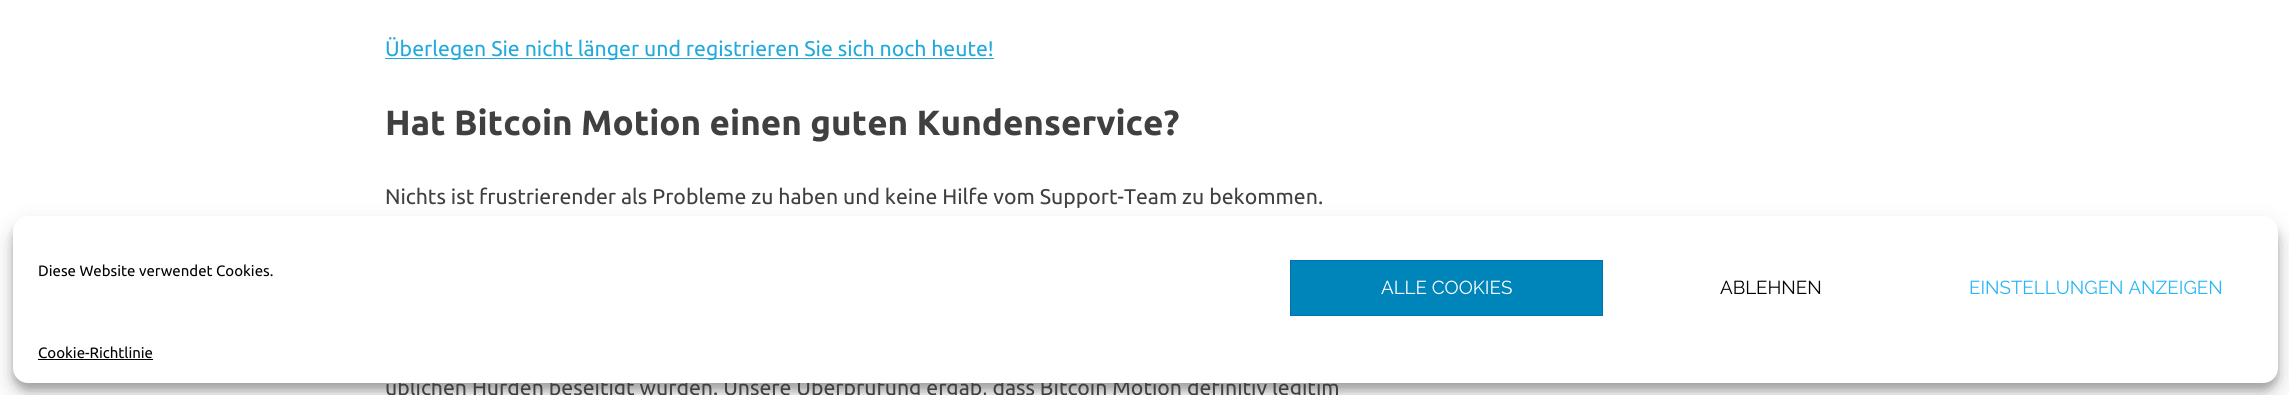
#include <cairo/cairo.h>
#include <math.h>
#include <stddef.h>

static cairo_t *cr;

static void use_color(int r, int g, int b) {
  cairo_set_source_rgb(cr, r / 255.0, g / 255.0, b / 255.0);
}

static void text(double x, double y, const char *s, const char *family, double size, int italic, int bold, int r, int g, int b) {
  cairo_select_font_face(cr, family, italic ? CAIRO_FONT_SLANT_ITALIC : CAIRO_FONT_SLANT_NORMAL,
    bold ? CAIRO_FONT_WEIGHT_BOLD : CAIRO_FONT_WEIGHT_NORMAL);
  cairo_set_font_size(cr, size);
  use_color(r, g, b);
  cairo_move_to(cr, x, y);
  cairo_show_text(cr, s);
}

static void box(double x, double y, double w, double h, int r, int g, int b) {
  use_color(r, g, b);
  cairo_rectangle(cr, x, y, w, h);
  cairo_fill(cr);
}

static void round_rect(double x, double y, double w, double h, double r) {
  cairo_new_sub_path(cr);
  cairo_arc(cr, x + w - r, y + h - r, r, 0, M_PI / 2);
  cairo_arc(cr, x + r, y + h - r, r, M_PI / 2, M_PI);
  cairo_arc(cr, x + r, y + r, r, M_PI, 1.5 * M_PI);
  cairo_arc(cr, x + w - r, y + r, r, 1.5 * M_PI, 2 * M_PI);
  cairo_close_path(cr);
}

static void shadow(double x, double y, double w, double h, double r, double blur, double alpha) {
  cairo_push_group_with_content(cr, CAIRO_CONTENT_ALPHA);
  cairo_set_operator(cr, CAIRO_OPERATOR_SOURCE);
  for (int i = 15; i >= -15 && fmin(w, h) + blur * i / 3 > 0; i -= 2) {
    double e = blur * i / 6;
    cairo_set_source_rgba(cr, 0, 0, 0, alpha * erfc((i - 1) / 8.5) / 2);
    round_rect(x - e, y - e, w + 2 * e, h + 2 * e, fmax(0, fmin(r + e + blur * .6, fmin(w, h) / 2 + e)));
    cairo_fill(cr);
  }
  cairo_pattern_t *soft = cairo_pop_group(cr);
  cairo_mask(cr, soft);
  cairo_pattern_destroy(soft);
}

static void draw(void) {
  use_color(255, 255, 255);
  cairo_paint(cr);
  box(385, 58, 609, 1, 34, 170, 221);
  use_color(0, 0, 0);
  shadow(13, 224, 2265, 166, 15, 4, 0.23);
  shadow(13, 229, 2265, 166, 15, 12.5, 0.19);
  text(385, 56, "Überlegen Sie nicht länger und registrieren Sie sich noch heute!", "Ubuntu", 21.25, 0, 0, 34, 170, 221);
  text(385, 135, "Hat Bitcoin Motion einen guten Kundenservice?", "Ubuntu", 35, 0, 1, 64, 64, 64);
  text(385, 204, "Nichts ist frustrierender als Probleme zu haben und keine Hilfe vom Support-Team zu bekommen.", "Ubuntu", 21.25, 0, 0, 64, 64, 64);
  text(385, 395, "üblichen Hürden beseitigt wurden. Unsere Überprüfung ergab, dass Bitcoin Motion definitiv legitim", "Ubuntu", 21.25, 0, 0, 64, 64, 64);
  use_color(255, 255, 255);
  round_rect(13, 216, 2265, 167, 15);
  cairo_fill(cr);
  text(38, 276, "Diese Website verwendet Cookies.", "Ubuntu", 15, 0, 0, 2, 2, 2);
  use_color(0, 133, 186);
  cairo_rectangle(cr, 1290.5, 260.5, 312, 55);
  cairo_fill_preserve(cr);
  use_color(0, 115, 170);
  cairo_set_line_width(cr, 1);
  cairo_stroke(cr);
  text(1381, 294, "ALLE COOKIES", "Raleway", 18.75, 0, 0, 255, 255, 255);
  text(1720, 294, "ABLEHNEN", "Raleway", 18.75, 0, 0, 2, 2, 2);
  text(1969, 294, "EINSTELLUNGEN ANZEIGEN", "Raleway", 18.75, 0, 0, 41, 182, 246);
  text(38, 358, "Cookie-Richtlinie", "Ubuntu", 15, 0, 0, 2, 2, 2);
  box(38, 359, 115, 1, 2, 2, 2);
}

int main(void) {
  cairo_surface_t *surface = cairo_image_surface_create(CAIRO_FORMAT_RGB24, 2289, 395);
  cr = cairo_create(surface);
  cairo_font_options_t *options = cairo_font_options_create();
  cairo_font_options_set_hint_metrics(options, CAIRO_HINT_METRICS_OFF);
  cairo_font_options_set_hint_style(options, CAIRO_HINT_STYLE_NONE);
  cairo_set_font_options(cr, options);
  cairo_set_miter_limit(cr, 4);
  draw();
  cairo_surface_write_to_png(surface, "out.png");
  cairo_font_options_destroy(options);
  cairo_destroy(cr);
  cairo_surface_destroy(surface);
  return 0;
}
